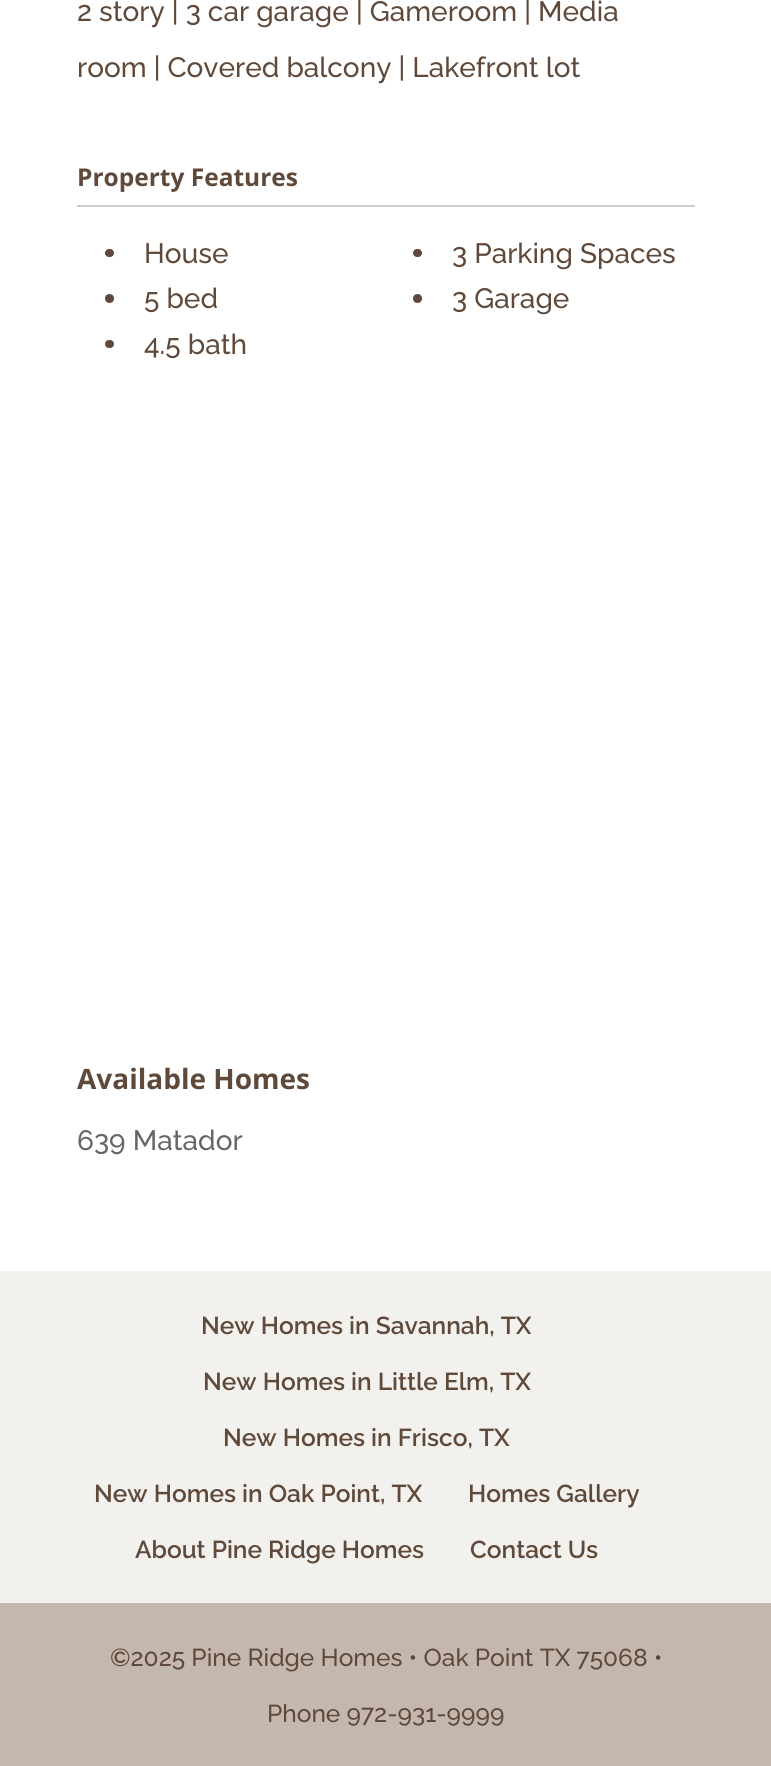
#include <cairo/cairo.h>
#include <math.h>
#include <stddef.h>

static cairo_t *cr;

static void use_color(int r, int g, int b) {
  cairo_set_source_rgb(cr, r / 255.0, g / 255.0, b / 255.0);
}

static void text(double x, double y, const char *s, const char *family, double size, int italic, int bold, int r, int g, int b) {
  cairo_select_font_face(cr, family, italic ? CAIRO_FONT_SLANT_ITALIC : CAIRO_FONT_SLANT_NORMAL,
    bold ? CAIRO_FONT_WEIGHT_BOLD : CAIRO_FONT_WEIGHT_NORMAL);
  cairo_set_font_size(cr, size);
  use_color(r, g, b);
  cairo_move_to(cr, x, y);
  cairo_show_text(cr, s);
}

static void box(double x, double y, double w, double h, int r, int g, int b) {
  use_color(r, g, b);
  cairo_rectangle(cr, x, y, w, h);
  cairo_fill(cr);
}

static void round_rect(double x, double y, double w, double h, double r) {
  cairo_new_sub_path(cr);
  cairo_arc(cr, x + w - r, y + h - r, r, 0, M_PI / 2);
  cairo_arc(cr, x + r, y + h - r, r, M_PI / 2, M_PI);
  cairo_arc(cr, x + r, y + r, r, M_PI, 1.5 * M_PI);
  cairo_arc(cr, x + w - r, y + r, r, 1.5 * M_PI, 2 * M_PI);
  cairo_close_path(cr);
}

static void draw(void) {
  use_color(255, 255, 255);
  cairo_paint(cr);
  box(77, 205, 618, 2, 204, 204, 204);
  use_color(95, 73, 58);
  round_rect(105, 249, 9, 8, 4);
  cairo_fill(cr);
  round_rect(413, 249, 9, 8, 4);
  cairo_fill(cr);
  cairo_arc(cr, 109.5, 298.5, 4.5, 0, 2 * M_PI);
  cairo_fill(cr);
  cairo_arc(cr, 417.5, 298.5, 4.5, 0, 2 * M_PI);
  cairo_fill(cr);
  round_rect(105, 340, 9, 8, 4);
  cairo_fill(cr);
  box(0, 1603, 771, 163, 196, 183, 173);
  box(0, 1271, 771, 332, 243, 241, 238);
  text(77, 21, "2 story | 3 car garage | Gameroom | Media", "Raleway Medium", 28, 0, 0, 95, 73, 58);
  text(77, 77, "room | Covered balcony | Lakefront lot", "Raleway Medium", 28, 0, 0, 95, 73, 58);
  text(77, 186, "Property Features", "Open Sans", 24.5, 0, 1, 95, 73, 58);
  text(144, 263, "House", "Raleway Medium", 28, 0, 0, 95, 73, 58);
  text(452, 263, "3 Parking Spaces", "Raleway Medium", 28, 0, 0, 95, 73, 58);
  text(144, 308, "5 bed", "Raleway Medium", 28, 0, 0, 95, 73, 58);
  text(452, 308, "3 Garage", "Raleway Medium", 28, 0, 0, 95, 73, 58);
  text(144, 354, "4.5 bath", "Raleway Medium", 28, 0, 0, 95, 73, 58);
  text(77, 1089, "Available Homes", "Open Sans", 28, 0, 1, 95, 73, 58);
  text(77, 1150, "639 Matador", "Raleway Medium", 28, 0, 0, 102, 102, 102);
  text(201, 1334, "New Homes in Savannah, TX", "Raleway SemiBold", 24.5, 0, 0, 95, 73, 58);
  text(203, 1390, "New Homes in Little Elm, TX", "Raleway SemiBold", 24.5, 0, 0, 95, 73, 58);
  text(223, 1446, "New Homes in Frisco, TX", "Raleway SemiBold", 24.5, 0, 0, 95, 73, 58);
  text(94, 1502, "New Homes in Oak Point, TX", "Raleway SemiBold", 24.5, 0, 0, 95, 73, 58);
  text(468, 1502, "Homes Gallery", "Raleway SemiBold", 24.5, 0, 0, 95, 73, 58);
  text(135, 1558, "About Pine Ridge Homes", "Raleway SemiBold", 24.5, 0, 0, 95, 73, 58);
  text(470, 1558, "Contact Us", "Raleway SemiBold", 24.5, 0, 0, 95, 73, 58);
  text(110, 1666, "©2025 Pine Ridge Homes • Oak Point TX 75068 •", "Raleway Medium", 24.5, 0, 0, 95, 73, 58);
  text(267, 1722, "Phone 972-931-9999", "Raleway Medium", 24.5, 0, 0, 95, 73, 58);
}

int main(void) {
  cairo_surface_t *surface = cairo_image_surface_create(CAIRO_FORMAT_RGB24, 771, 1766);
  cr = cairo_create(surface);
  cairo_font_options_t *options = cairo_font_options_create();
  cairo_font_options_set_hint_metrics(options, CAIRO_HINT_METRICS_OFF);
  cairo_font_options_set_hint_style(options, CAIRO_HINT_STYLE_NONE);
  cairo_set_font_options(cr, options);
  cairo_set_miter_limit(cr, 4);
  draw();
  cairo_surface_write_to_png(surface, "out.png");
  cairo_font_options_destroy(options);
  cairo_destroy(cr);
  cairo_surface_destroy(surface);
  return 0;
}
